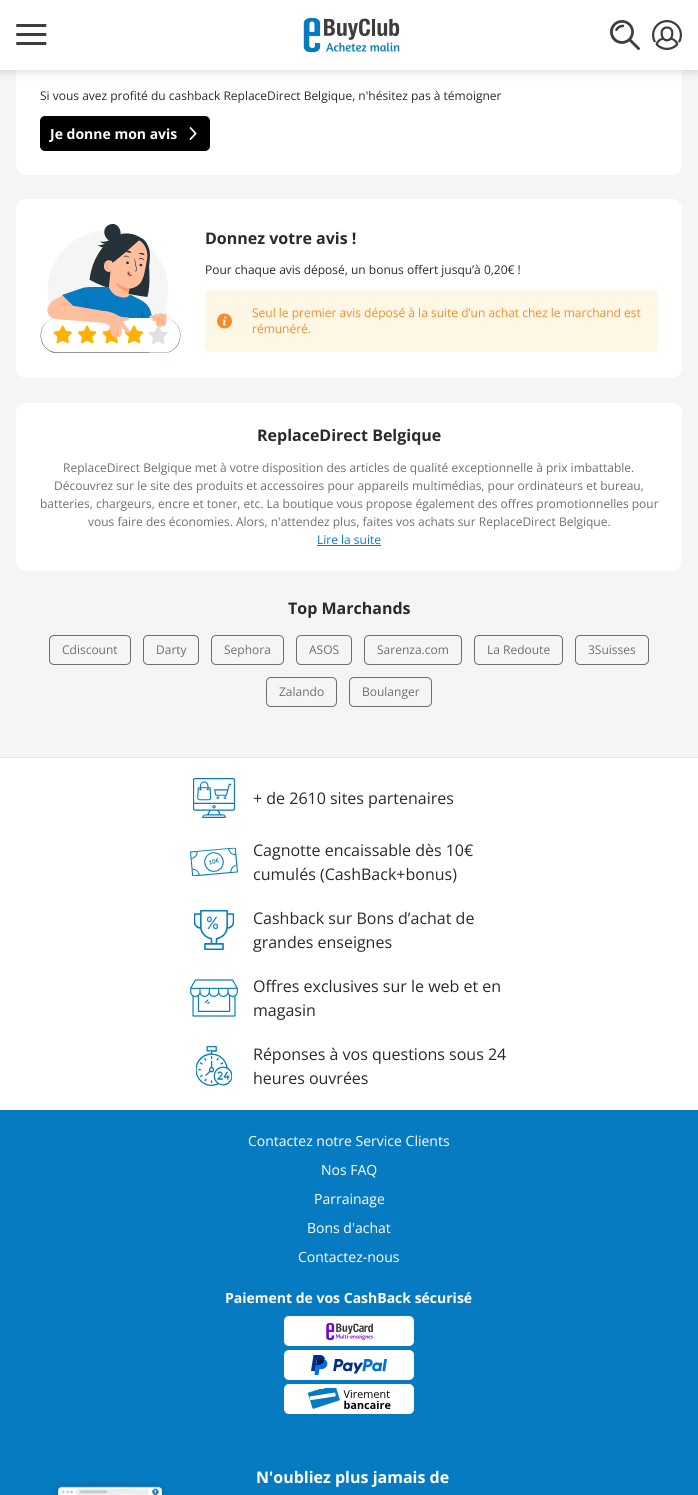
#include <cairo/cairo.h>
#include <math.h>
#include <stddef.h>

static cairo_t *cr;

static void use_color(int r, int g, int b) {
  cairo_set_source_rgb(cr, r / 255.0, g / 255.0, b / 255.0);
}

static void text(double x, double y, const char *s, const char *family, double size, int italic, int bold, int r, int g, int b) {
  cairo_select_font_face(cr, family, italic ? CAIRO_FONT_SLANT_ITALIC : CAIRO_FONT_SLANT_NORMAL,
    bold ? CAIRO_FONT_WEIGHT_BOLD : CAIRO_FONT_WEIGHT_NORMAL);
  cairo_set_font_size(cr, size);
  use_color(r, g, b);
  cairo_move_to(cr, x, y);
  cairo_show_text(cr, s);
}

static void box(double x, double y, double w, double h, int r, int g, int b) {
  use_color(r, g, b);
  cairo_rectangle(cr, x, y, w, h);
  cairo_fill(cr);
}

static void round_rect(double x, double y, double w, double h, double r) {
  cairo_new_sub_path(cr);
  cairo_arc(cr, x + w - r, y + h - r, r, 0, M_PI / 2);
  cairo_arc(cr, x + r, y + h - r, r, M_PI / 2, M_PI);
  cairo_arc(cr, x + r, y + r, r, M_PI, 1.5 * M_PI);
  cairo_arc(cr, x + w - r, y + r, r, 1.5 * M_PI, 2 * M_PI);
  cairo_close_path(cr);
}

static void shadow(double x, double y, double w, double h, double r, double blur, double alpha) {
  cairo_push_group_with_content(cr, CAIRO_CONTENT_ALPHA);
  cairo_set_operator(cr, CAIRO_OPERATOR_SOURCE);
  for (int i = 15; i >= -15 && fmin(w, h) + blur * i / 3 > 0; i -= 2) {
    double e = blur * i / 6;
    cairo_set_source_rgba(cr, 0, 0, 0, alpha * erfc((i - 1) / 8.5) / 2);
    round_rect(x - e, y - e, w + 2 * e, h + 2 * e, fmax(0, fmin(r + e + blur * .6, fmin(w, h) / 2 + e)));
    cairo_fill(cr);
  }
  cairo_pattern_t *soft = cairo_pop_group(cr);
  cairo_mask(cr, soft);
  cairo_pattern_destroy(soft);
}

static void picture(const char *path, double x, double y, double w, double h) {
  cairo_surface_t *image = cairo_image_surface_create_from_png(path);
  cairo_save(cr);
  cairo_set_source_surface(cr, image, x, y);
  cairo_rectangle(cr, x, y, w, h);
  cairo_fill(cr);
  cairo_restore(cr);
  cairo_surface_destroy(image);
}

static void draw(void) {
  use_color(255, 255, 255);
  cairo_paint(cr);
  box(0, 70, 698, 687, 245, 245, 245);
  use_color(255, 255, 255);
  round_rect(16, 28, 666, 147, 10);
  cairo_fill(cr);
  use_color(0, 0, 0);
  shadow(0, 0, 698, 70, 0, 5, 0.2);
  box(0, 0, 698, 70, 255, 255, 255);
  picture("img_01.png", 16, 24, 31, 21);
  picture("img_02.png", 303, 18, 97, 35);
  picture("img_03.png", 610, 20, 30, 30);
  picture("img_04.png", 652, 20, 30, 30);
  use_color(0, 0, 0);
  round_rect(40, 116, 170, 35, 5);
  cairo_fill(cr);
  picture("img_05.png", 189, 127, 8, 13);
  use_color(255, 255, 255);
  round_rect(16, 199, 666, 179, 10);
  cairo_fill(cr);
  picture("img_06.png", 40, 224, 141, 129);
  use_color(255, 247, 229);
  round_rect(205, 290, 453, 62, 5);
  cairo_fill(cr);
  picture("img_07.png", 217, 313, 15, 16);
  use_color(255, 255, 255);
  round_rect(16, 403, 666, 168, 10);
  cairo_fill(cr);
  box(317, 545, 64, 1, 7, 123, 194);
  round_rect(49.5, 635.5, 81, 29, 4.5);
  use_color(112, 111, 111);
  cairo_set_line_width(cr, 1);
  cairo_stroke(cr);
  round_rect(143.5, 635.5, 55, 29, 4.5);
  cairo_stroke(cr);
  round_rect(211.5, 635.5, 72, 29, 4.5);
  cairo_stroke(cr);
  round_rect(296.5, 635.5, 55, 29, 4.5);
  cairo_stroke(cr);
  round_rect(364.5, 635.5, 97, 29, 4.5);
  cairo_stroke(cr);
  round_rect(474.5, 635.5, 88, 29, 4.5);
  cairo_stroke(cr);
  round_rect(575.5, 635.5, 73, 29, 4.5);
  cairo_stroke(cr);
  round_rect(266.5, 677.5, 70, 29, 4.5);
  cairo_stroke(cr);
  round_rect(349.5, 677.5, 82, 29, 4.5);
  cairo_stroke(cr);
  box(0, 757, 698, 1, 229, 229, 229);
  picture("img_08.png", 193, 778, 42, 40);
  picture("img_09.png", 190, 847, 48, 29);
  picture("img_10.png", 194, 910, 40, 40);
  picture("img_11.png", 190, 979, 48, 38);
  picture("img_12.png", 195, 1046, 38, 40);
  box(0, 1110, 698, 385, 7, 123, 194);
  use_color(255, 255, 255);
  round_rect(284, 1316, 130, 30, 5);
  cairo_fill(cr);
  picture("img_13.png", 326, 1323, 47, 17);
  round_rect(284, 1350, 130, 30, 5);
  cairo_fill(cr);
  picture("img_14.png", 311, 1355, 76, 20);
  round_rect(284, 1384, 130, 30, 5);
  cairo_fill(cr);
  picture("img_15.png", 307, 1388, 84, 21);
  picture("img_16.png", 51, 1479, 118, 16);
  text(40, 100, "Si vous avez profité du cashback ReplaceDirect Belgique, n'hésitez pas à témoigner", "Open Sans", 12, 0, 0, 42, 42, 42);
  text(50, 139, "Je donne mon avis", "Open Sans", 14, 0, 1, 255, 255, 255);
  text(205, 244, "Donnez votre avis !", "Open Sans", 16, 0, 1, 42, 42, 42);
  text(205, 274, "Pour chaque avis déposé, un bonus offert jusqu’à 0,20€ !", "Open Sans", 12, 0, 0, 42, 42, 42);
  text(252, 317, "Seul le premier avis déposé à la suite d’un achat chez le marchand est", "Open Sans", 12, 0, 0, 249, 138, 41);
  text(252, 333, "rémunéré.", "Open Sans", 12, 0, 0, 249, 138, 41);
  text(257, 441, "ReplaceDirect Belgique", "Open Sans", 16, 0, 1, 42, 42, 42);
  text(63, 472, "ReplaceDirect Belgique met à votre disposition des articles de qualité exceptionnelle à prix imbattable.", "Open Sans", 12, 0, 0, 112, 111, 111);
  text(54, 490, "Découvrez sur le site des produits et accessoires pour appareils multimédias, pour ordinateurs et bureau,", "Open Sans", 12, 0, 0, 112, 111, 111);
  text(40, 508, "batteries, chargeurs, encre et toner, etc. La boutique vous propose également des offres promotionnelles pour", "Open Sans", 12, 0, 0, 112, 111, 111);
  text(88, 526, "vous faire des économies. Alors, n'attendez plus, faites vos achats sur ReplaceDirect Belgique.", "Open Sans", 12, 0, 0, 112, 111, 111);
  text(317, 544, "Lire la suite", "Open Sans", 12, 0, 0, 7, 123, 194);
  text(288, 614, "Top Marchands", "Open Sans", 16, 0, 1, 42, 42, 42);
  text(62, 654, "Cdiscount", "Open Sans", 12, 0, 0, 112, 111, 111);
  text(156, 654, "Darty", "Open Sans", 12, 0, 0, 112, 111, 111);
  text(224, 654, "Sephora", "Open Sans", 12, 0, 0, 112, 111, 111);
  text(309, 654, "ASOS", "Open Sans", 12, 0, 0, 112, 111, 111);
  text(377, 654, "Sarenza.com", "Open Sans", 12, 0, 0, 112, 111, 111);
  text(487, 654, "La Redoute", "Open Sans", 12, 0, 0, 112, 111, 111);
  text(588, 654, "3Suisses", "Open Sans", 12, 0, 0, 112, 111, 111);
  text(279, 696, "Zalando", "Open Sans", 12, 0, 0, 112, 111, 111);
  text(362, 696, "Boulanger", "Open Sans", 12, 0, 0, 112, 111, 111);
  text(253, 804, "+ de 2610 sites partenaires", "Open Sans", 16, 0, 0, 42, 42, 42);
  text(253, 856, "Cagnotte encaissable dès 10€", "Open Sans", 16, 0, 0, 42, 42, 42);
  text(253, 880, "cumulés (CashBack+bonus)", "Open Sans", 16, 0, 0, 42, 42, 42);
  text(253, 924, "Cashback sur Bons d’achat de", "Open Sans", 16, 0, 0, 42, 42, 42);
  text(253, 948, "grandes enseignes", "Open Sans", 16, 0, 0, 42, 42, 42);
  text(253, 992, "Offres exclusives sur le web et en", "Open Sans", 16, 0, 0, 42, 42, 42);
  text(253, 1016, "magasin", "Open Sans", 16, 0, 0, 42, 42, 42);
  text(253, 1060, "Réponses à vos questions sous 24", "Open Sans", 16, 0, 0, 42, 42, 42);
  text(253, 1084, "heures ouvrées", "Open Sans", 16, 0, 0, 42, 42, 42);
  text(248, 1146, "Contactez notre Service Clients", "Open Sans", 14, 0, 0, 255, 255, 255);
  text(321, 1175, "Nos FAQ", "Open Sans", 14, 0, 0, 255, 255, 255);
  text(314, 1204, "Parrainage", "Open Sans", 14, 0, 0, 255, 255, 255);
  text(307, 1233, "Bons d'achat", "Open Sans", 14, 0, 0, 255, 255, 255);
  text(298, 1262, "Contactez-nous", "Open Sans", 14, 0, 0, 255, 255, 255);
  text(225, 1303, "Paiement de vos CashBack sécurisé", "Open Sans", 14, 0, 1, 255, 255, 255);
  text(256, 1483, "N'oubliez plus jamais de", "Open Sans", 16, 0, 1, 255, 255, 255);
}

int main(void) {
  cairo_surface_t *surface = cairo_image_surface_create(CAIRO_FORMAT_RGB24, 698, 1495);
  cr = cairo_create(surface);
  cairo_font_options_t *options = cairo_font_options_create();
  cairo_font_options_set_hint_metrics(options, CAIRO_HINT_METRICS_OFF);
  cairo_font_options_set_hint_style(options, CAIRO_HINT_STYLE_NONE);
  cairo_set_font_options(cr, options);
  cairo_set_miter_limit(cr, 4);
  draw();
  cairo_surface_write_to_png(surface, "out.png");
  cairo_font_options_destroy(options);
  cairo_destroy(cr);
  cairo_surface_destroy(surface);
  return 0;
}
